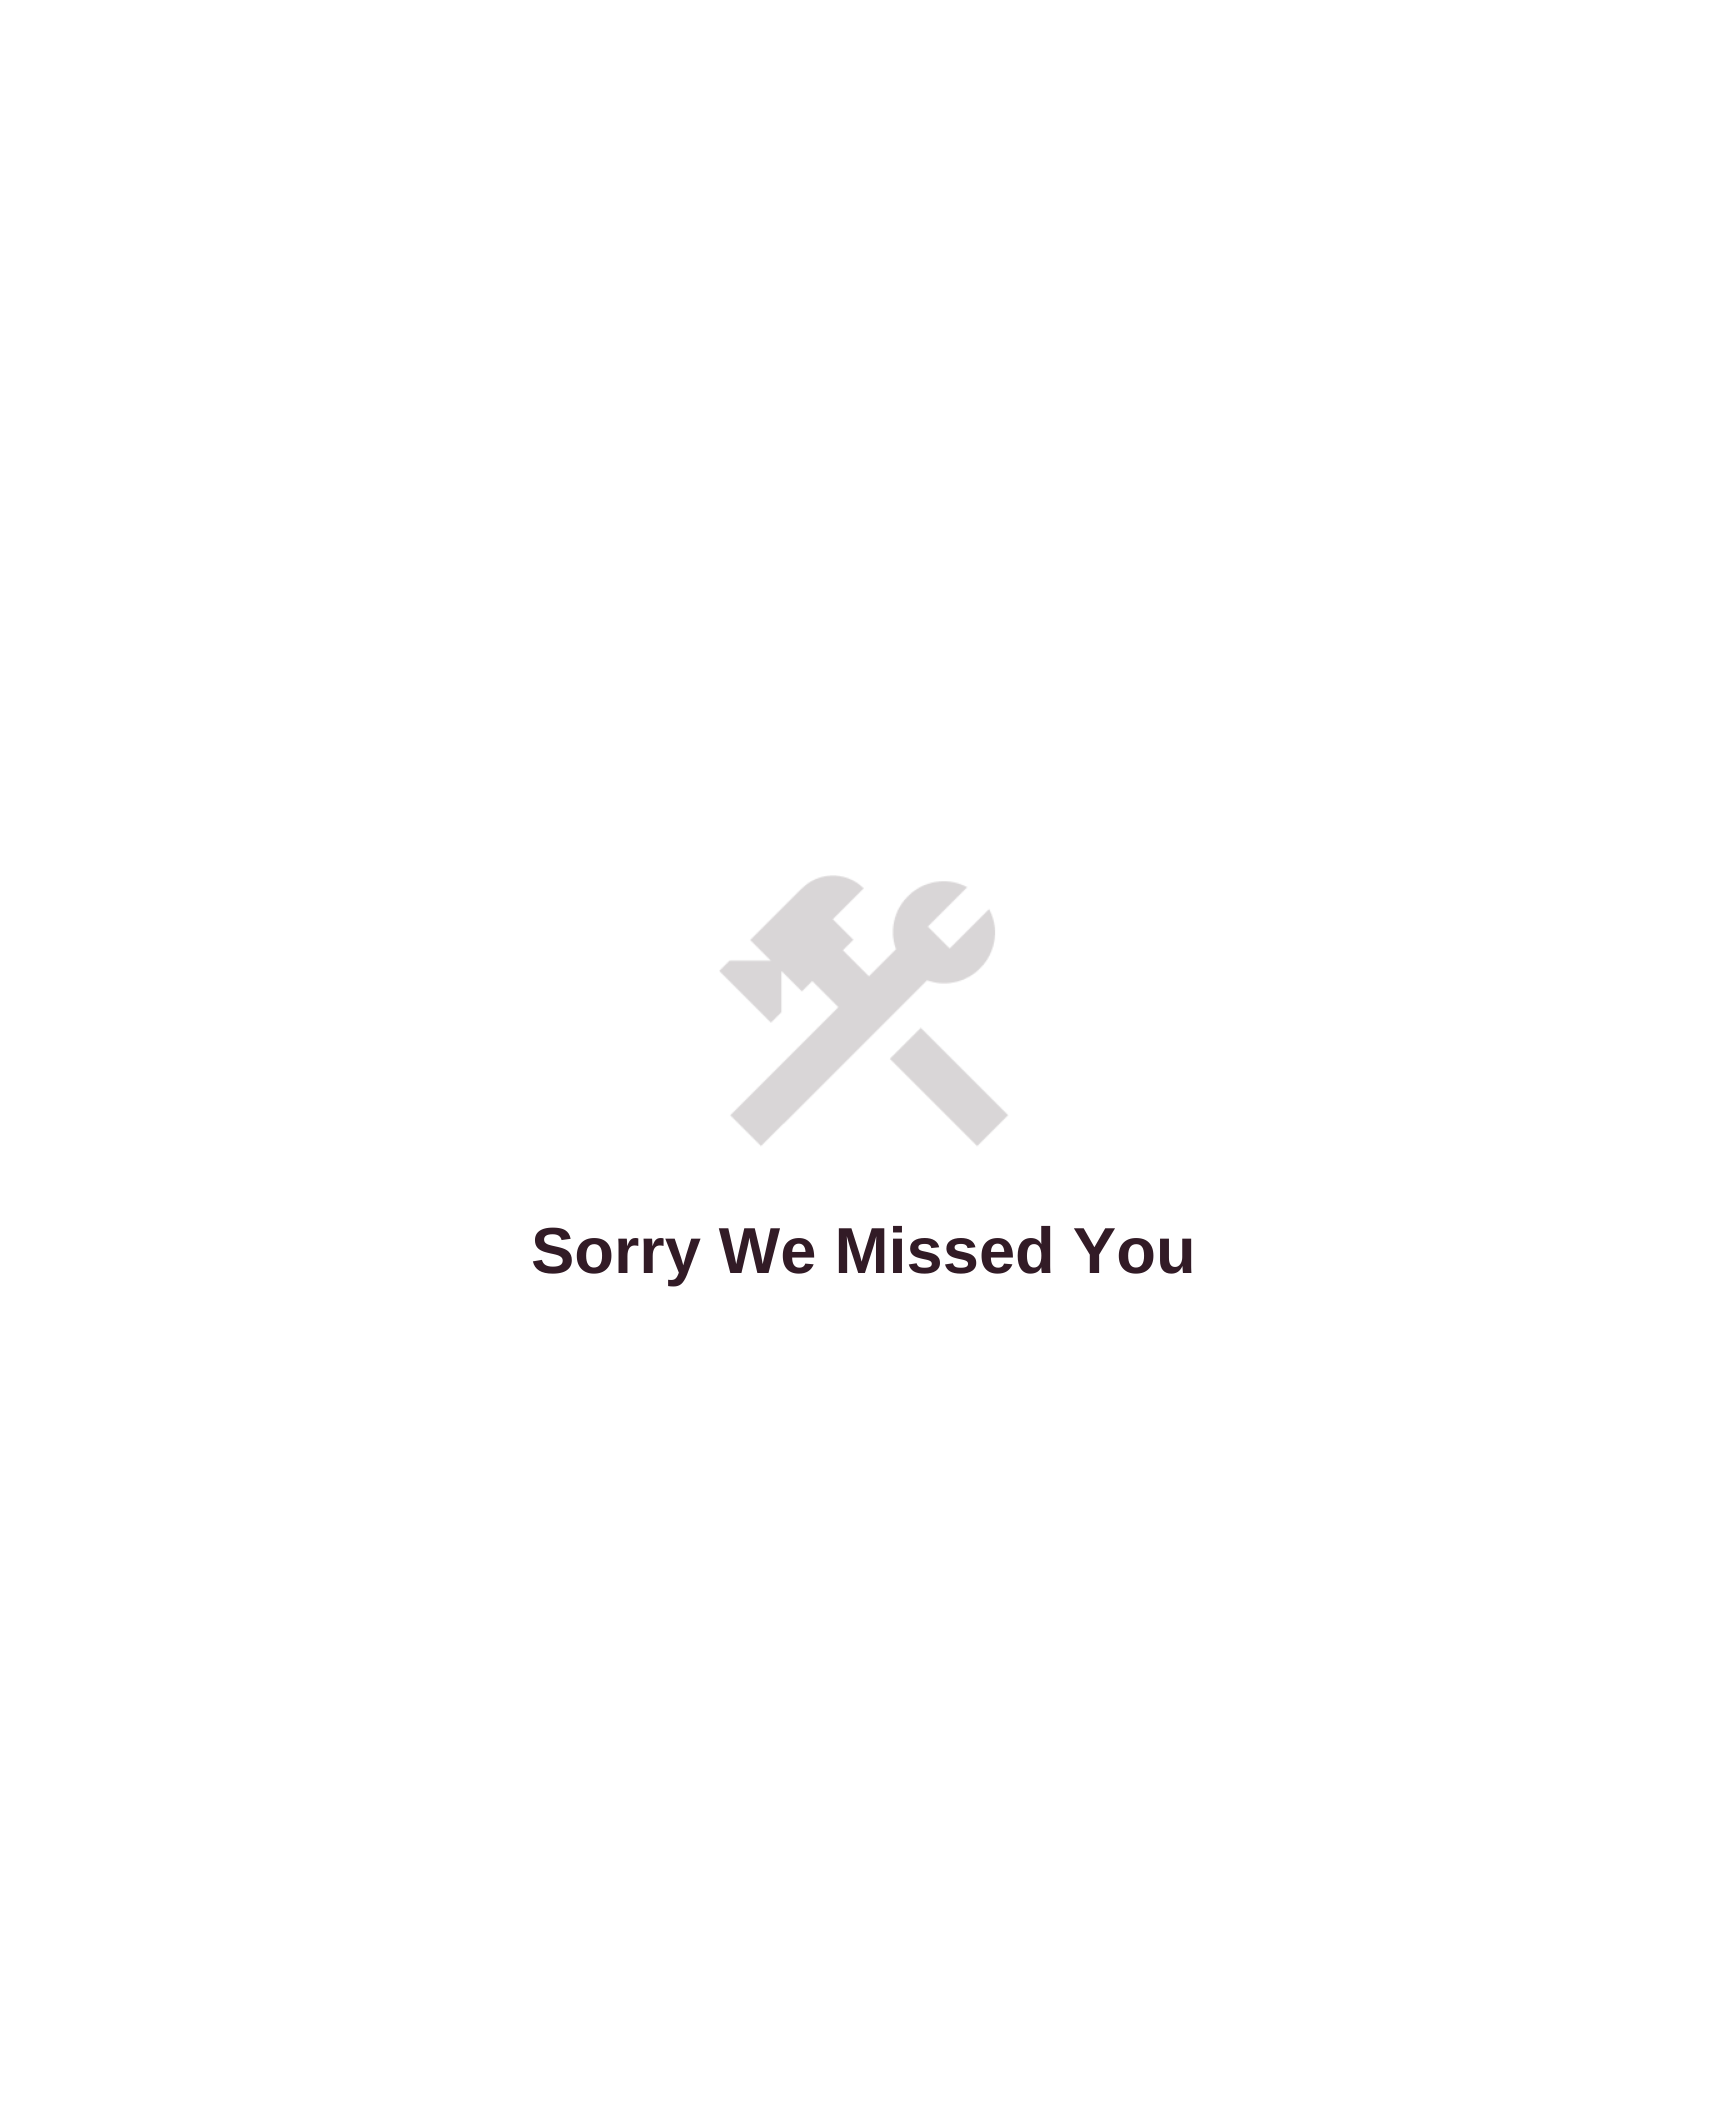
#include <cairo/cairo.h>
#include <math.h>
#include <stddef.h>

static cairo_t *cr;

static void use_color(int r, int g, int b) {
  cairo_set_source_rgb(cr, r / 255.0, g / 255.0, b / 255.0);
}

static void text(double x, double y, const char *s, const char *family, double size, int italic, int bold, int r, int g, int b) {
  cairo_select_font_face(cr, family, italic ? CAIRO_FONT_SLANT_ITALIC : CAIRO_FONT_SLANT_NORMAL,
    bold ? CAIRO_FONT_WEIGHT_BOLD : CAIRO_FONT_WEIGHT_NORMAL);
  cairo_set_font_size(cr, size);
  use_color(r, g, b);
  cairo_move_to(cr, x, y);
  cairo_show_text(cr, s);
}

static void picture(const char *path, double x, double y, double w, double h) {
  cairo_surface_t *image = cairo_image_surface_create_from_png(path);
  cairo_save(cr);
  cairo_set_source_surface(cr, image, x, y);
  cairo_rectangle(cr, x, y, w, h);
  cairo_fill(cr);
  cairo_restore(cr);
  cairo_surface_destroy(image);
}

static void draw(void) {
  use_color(255, 255, 255);
  cairo_paint(cr);
  picture("img_01.png", 719, 875, 290, 272);
  text(531, 1273, "Sorry We Missed You", "Liberation Sans", 65, 0, 1, 50, 27, 38);
}

int main(void) {
  cairo_surface_t *surface = cairo_image_surface_create(CAIRO_FORMAT_RGB24, 1727, 2127);
  cr = cairo_create(surface);
  cairo_font_options_t *options = cairo_font_options_create();
  cairo_font_options_set_hint_metrics(options, CAIRO_HINT_METRICS_OFF);
  cairo_font_options_set_hint_style(options, CAIRO_HINT_STYLE_NONE);
  cairo_set_font_options(cr, options);
  cairo_set_miter_limit(cr, 4);
  draw();
  cairo_surface_write_to_png(surface, "out.png");
  cairo_font_options_destroy(options);
  cairo_destroy(cr);
  cairo_surface_destroy(surface);
  return 0;
}
